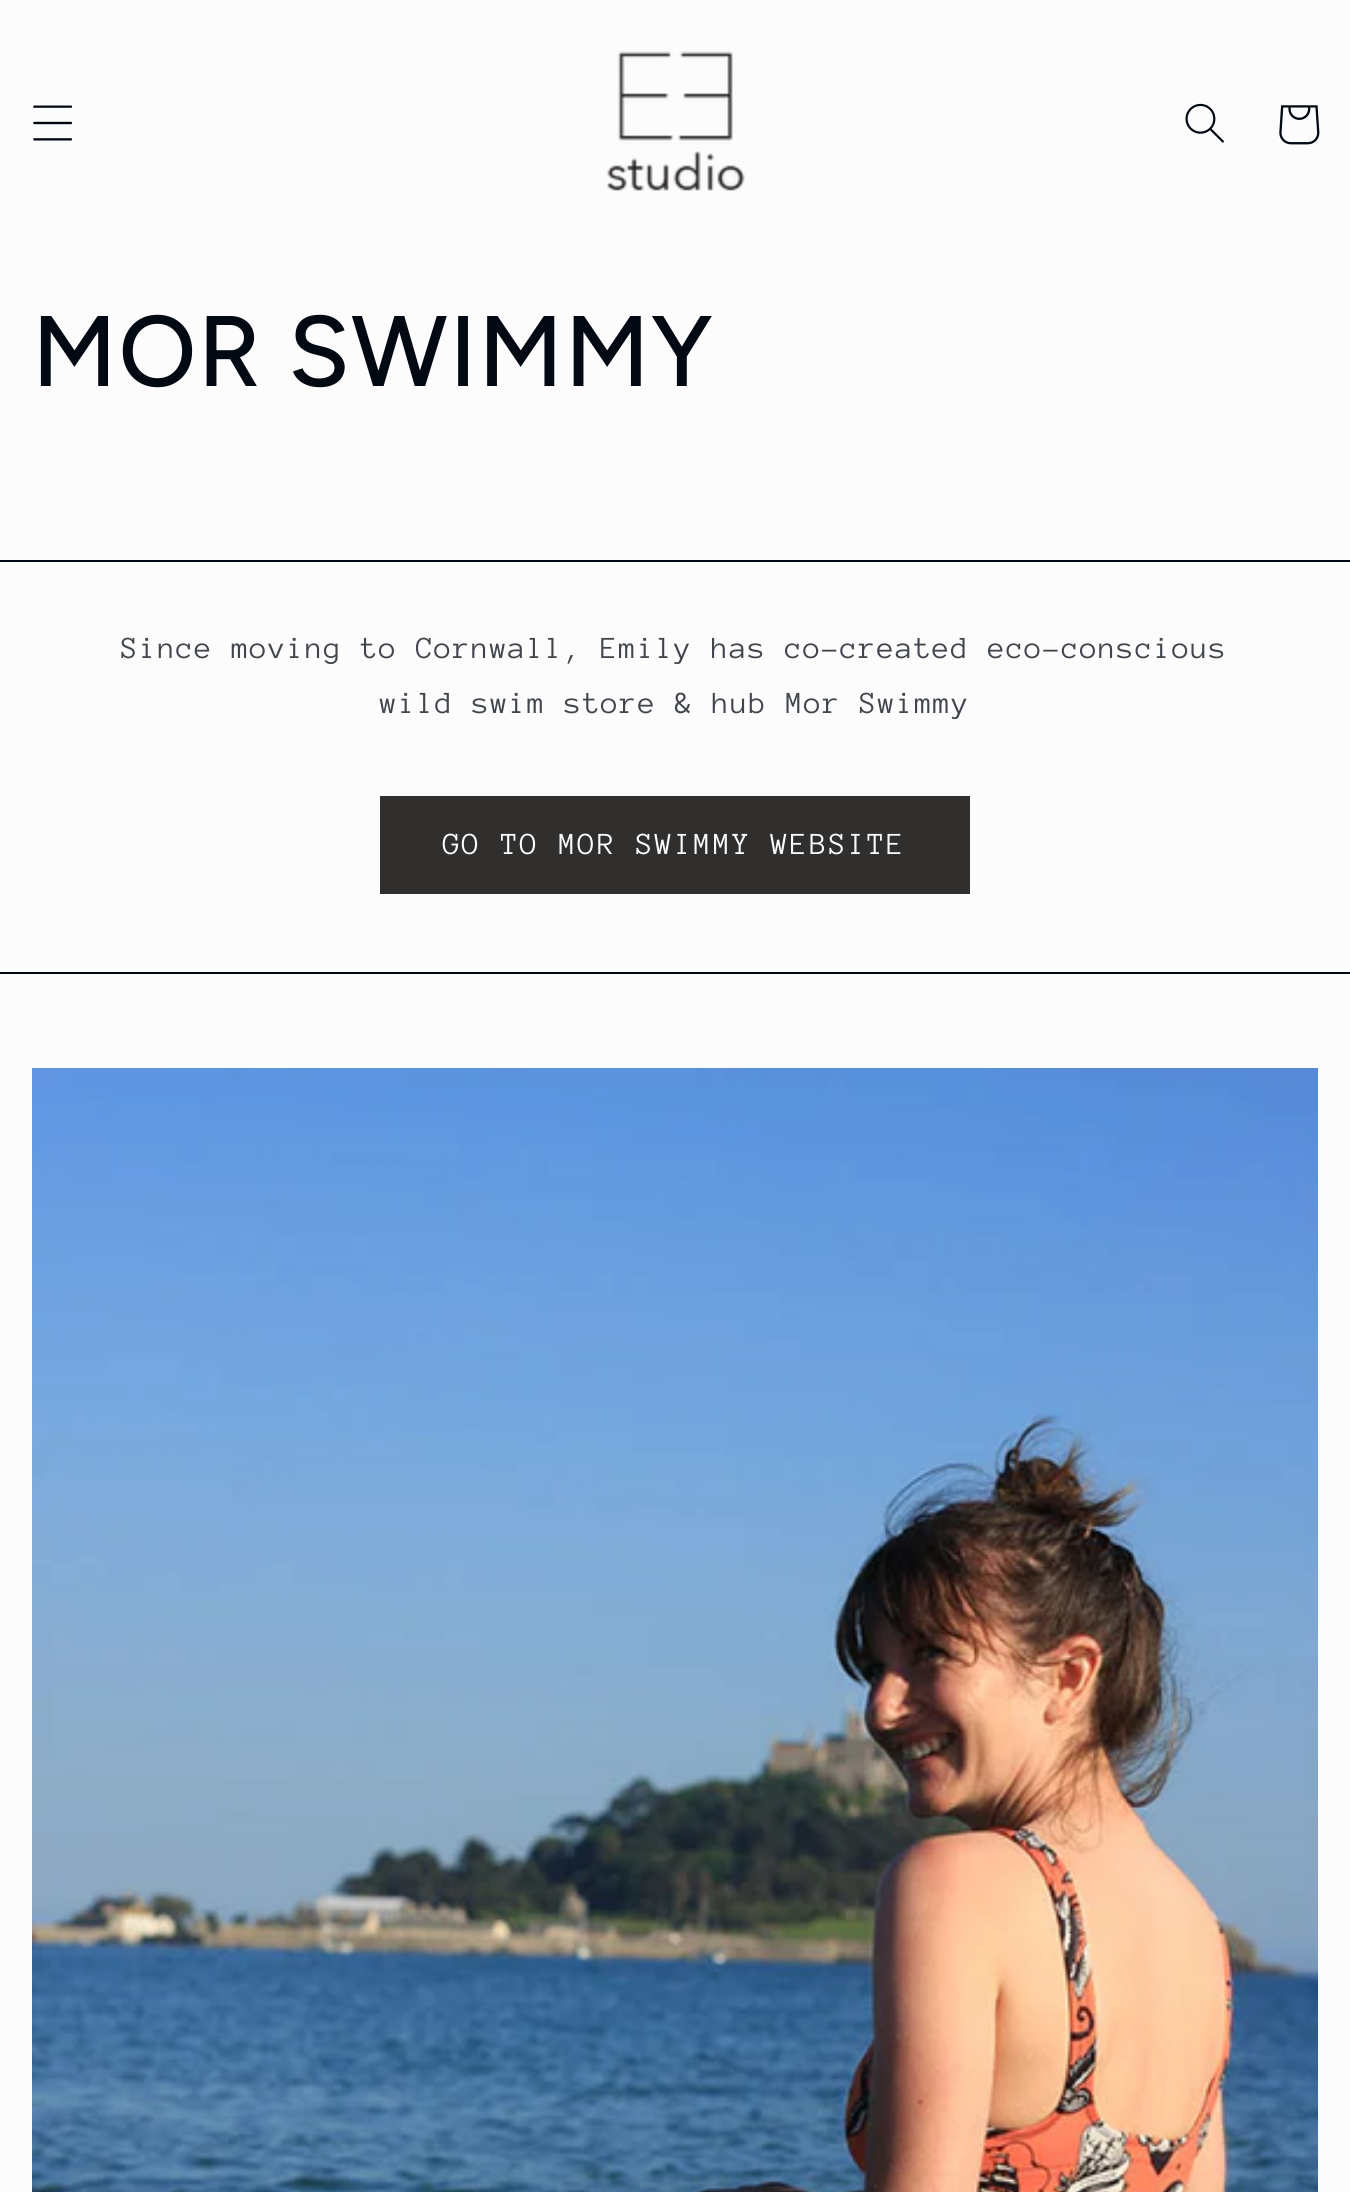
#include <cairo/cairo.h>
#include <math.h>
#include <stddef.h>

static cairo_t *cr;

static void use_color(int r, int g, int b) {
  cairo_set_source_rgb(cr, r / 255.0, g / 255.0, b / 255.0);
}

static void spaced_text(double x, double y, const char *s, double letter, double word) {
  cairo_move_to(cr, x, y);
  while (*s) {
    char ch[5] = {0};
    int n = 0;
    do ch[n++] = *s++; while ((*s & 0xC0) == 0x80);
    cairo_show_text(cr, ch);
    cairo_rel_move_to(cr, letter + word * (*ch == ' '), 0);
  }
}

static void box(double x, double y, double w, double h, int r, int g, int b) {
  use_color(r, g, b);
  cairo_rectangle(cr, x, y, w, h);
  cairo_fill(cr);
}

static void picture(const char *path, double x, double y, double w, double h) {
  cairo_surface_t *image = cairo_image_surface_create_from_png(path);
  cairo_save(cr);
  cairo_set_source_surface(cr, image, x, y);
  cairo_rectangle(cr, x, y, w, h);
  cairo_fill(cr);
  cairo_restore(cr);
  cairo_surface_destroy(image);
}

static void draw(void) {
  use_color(252, 252, 252);
  cairo_paint(cr);
  picture("img_01.png", 33, 105, 40, 36);
  picture("img_02.png", 607, 51, 138, 140);
  picture("img_03.png", 1185, 103, 39, 40);
  picture("img_04.png", 1279, 105, 41, 40);
  box(0, 560, 1350, 2, 2, 9, 18);
  box(0, 972, 1350, 2, 2, 9, 18);
  box(380, 796, 590, 98, 48, 47, 46);
  picture("img_05.png", 32, 1068, 1286, 1124);
  cairo_select_font_face(cr, "Figtree Medium", CAIRO_FONT_SLANT_NORMAL, CAIRO_FONT_WEIGHT_NORMAL);
  cairo_set_font_size(cr, 100);
  use_color(2, 9, 18);
  spaced_text(32, 386, "MOR SWIMMY", 1.5, 0);
  cairo_select_font_face(cr, "Anonymous Pro", CAIRO_FONT_SLANT_NORMAL, CAIRO_FONT_WEIGHT_NORMAL);
  cairo_set_font_size(cr, 31.5);
  use_color(65, 70, 77);
  spaced_text(121, 658, "Since moving to Cornwall, Emily has co-created eco-conscious", 1.25, 0);
  spaced_text(380, 713, "wild swim store & hub Mor Swimmy", 1.25, 0);
  use_color(252, 252, 252);
  spaced_text(443, 854, "GO TO MOR SWIMMY WEBSITE", 2.1, 0);
}

int main(void) {
  cairo_surface_t *surface = cairo_image_surface_create(CAIRO_FORMAT_RGB24, 1350, 2192);
  cr = cairo_create(surface);
  cairo_font_options_t *options = cairo_font_options_create();
  cairo_font_options_set_hint_metrics(options, CAIRO_HINT_METRICS_OFF);
  cairo_font_options_set_hint_style(options, CAIRO_HINT_STYLE_NONE);
  cairo_set_font_options(cr, options);
  cairo_set_miter_limit(cr, 4);
  draw();
  cairo_surface_write_to_png(surface, "out.png");
  cairo_font_options_destroy(options);
  cairo_destroy(cr);
  cairo_surface_destroy(surface);
  return 0;
}
